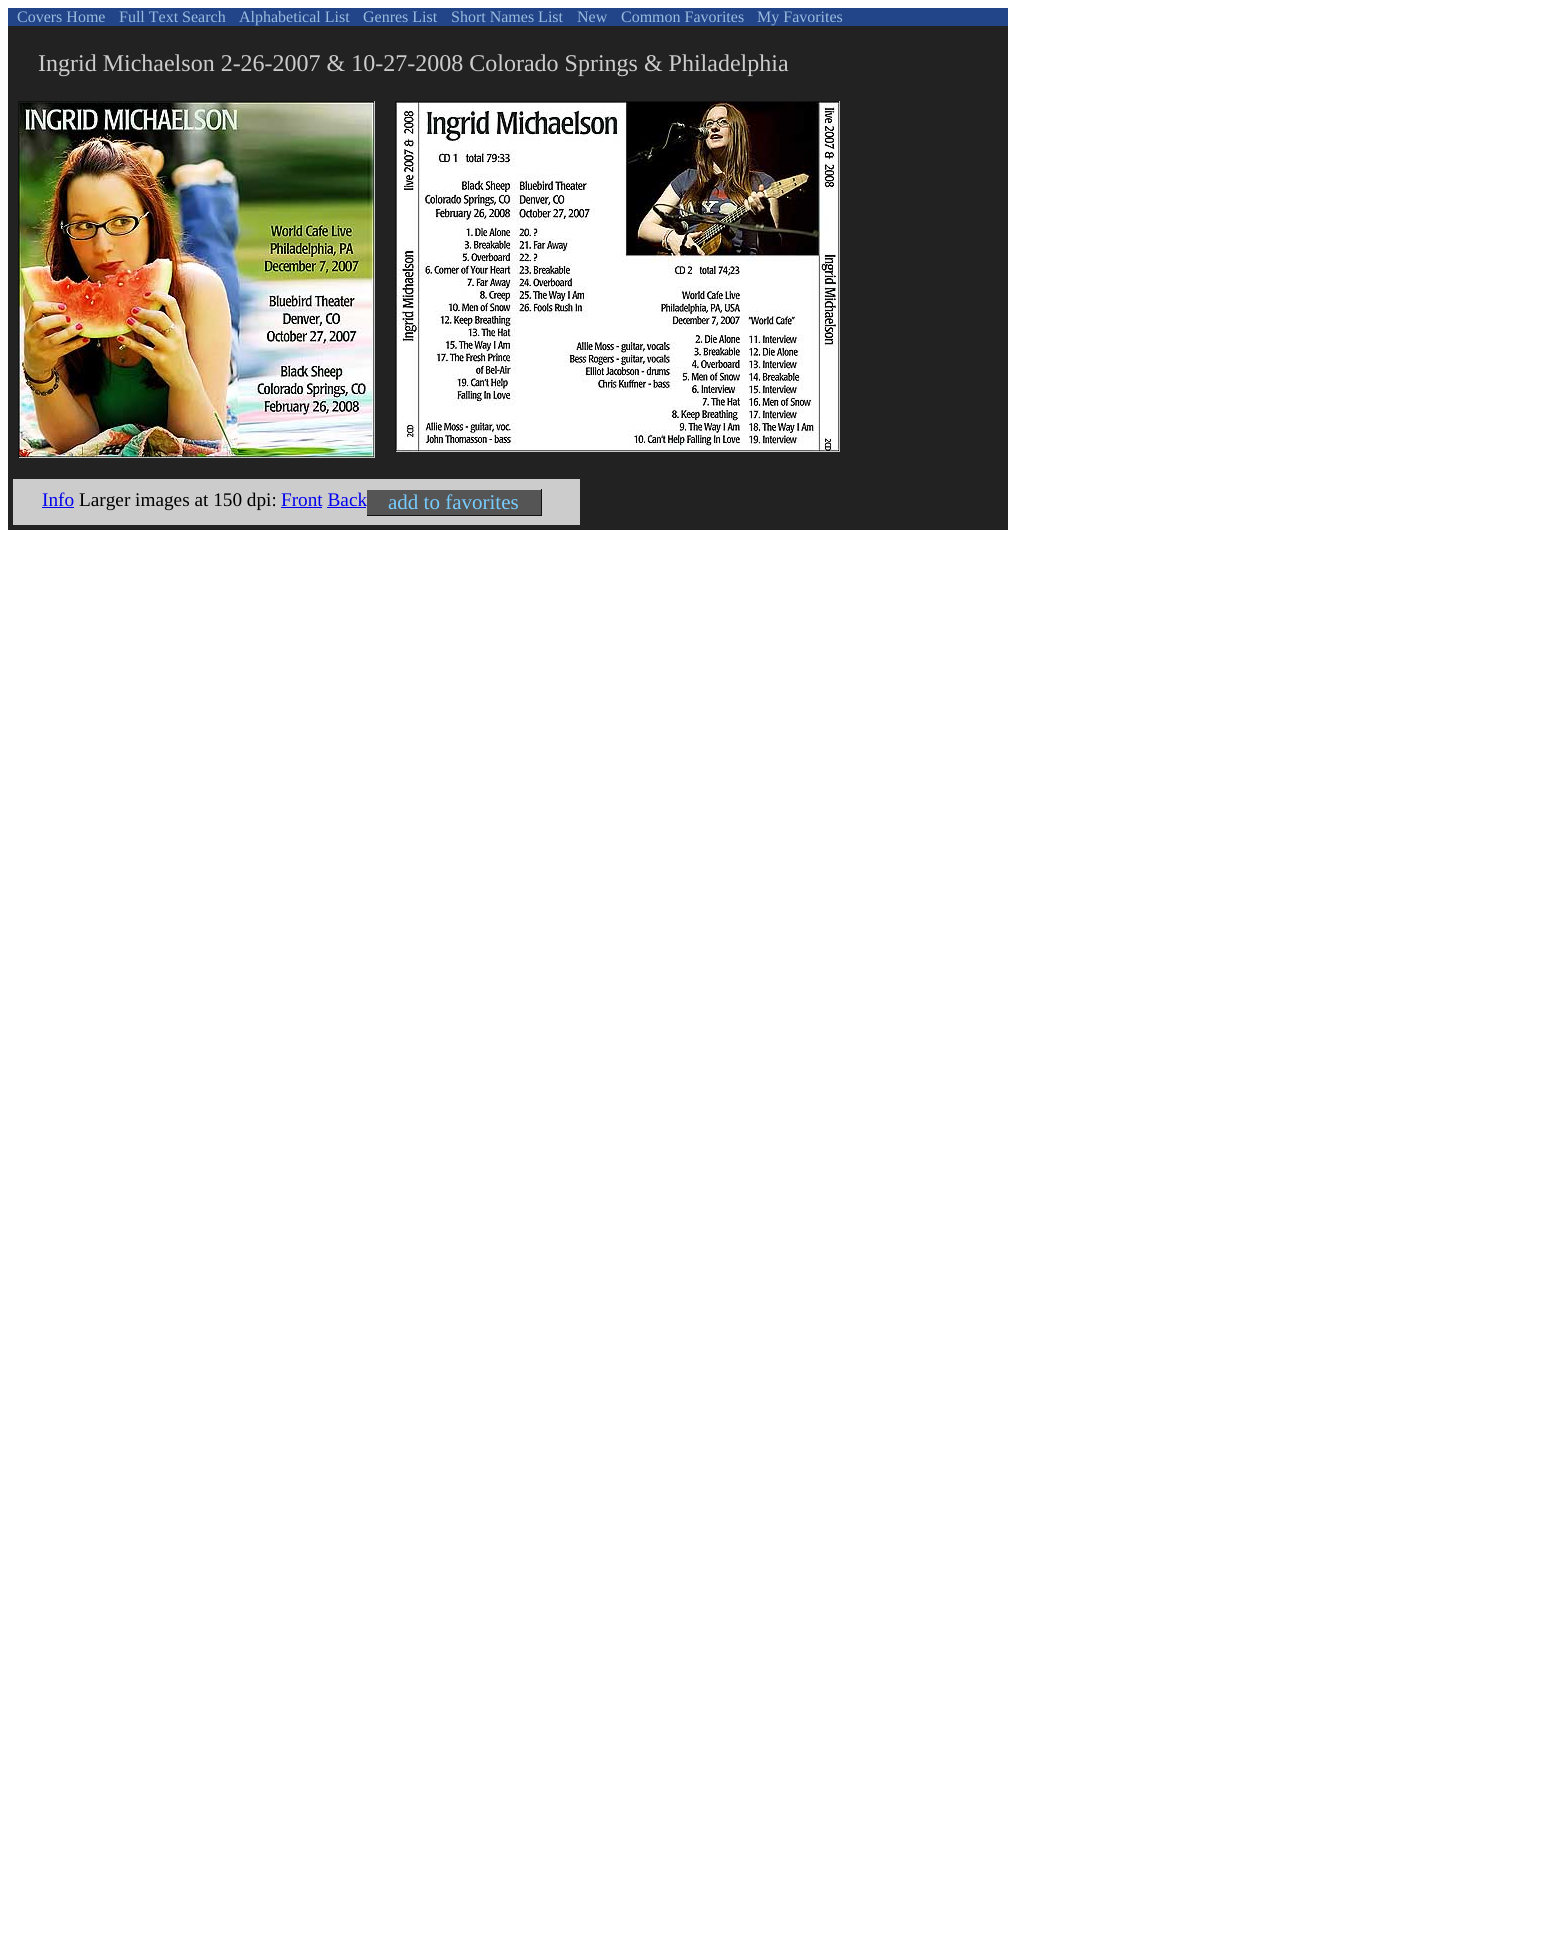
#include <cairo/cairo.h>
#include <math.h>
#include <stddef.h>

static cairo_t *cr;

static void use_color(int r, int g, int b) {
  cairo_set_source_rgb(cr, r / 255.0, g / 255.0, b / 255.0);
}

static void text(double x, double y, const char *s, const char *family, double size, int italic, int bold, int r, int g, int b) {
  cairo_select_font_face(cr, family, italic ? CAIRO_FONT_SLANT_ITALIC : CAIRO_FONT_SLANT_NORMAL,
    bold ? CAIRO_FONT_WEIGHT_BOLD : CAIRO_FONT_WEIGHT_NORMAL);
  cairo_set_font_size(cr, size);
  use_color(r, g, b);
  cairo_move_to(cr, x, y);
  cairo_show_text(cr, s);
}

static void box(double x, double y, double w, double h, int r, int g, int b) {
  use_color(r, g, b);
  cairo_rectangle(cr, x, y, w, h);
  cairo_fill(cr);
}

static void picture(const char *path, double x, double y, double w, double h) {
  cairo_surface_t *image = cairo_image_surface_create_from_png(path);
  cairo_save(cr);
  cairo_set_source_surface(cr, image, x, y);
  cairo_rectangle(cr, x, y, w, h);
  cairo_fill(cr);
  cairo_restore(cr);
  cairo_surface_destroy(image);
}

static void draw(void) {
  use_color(255, 255, 255);
  cairo_paint(cr);
  box(8, 8, 1000, 18, 34, 68, 136);
  box(8, 26, 1000, 504, 34, 34, 34);
  box(18, 101, 357, 1, 17, 17, 17);
  box(374, 101, 1, 357, 204, 204, 204);
  box(18, 457, 357, 1, 204, 204, 204);
  box(18, 101, 1, 357, 17, 17, 17);
  picture("img_01.png", 19, 102, 355, 355);
  box(395, 101, 445, 1, 17, 17, 17);
  box(839, 101, 1, 351, 204, 204, 204);
  box(395, 451, 445, 1, 204, 204, 204);
  box(395, 101, 1, 351, 17, 17, 17);
  picture("img_02.png", 396, 102, 443, 349);
  box(13, 479, 567, 46, 204, 204, 204);
  box(42, 507, 32, 1, 0, 0, 238);
  box(281, 507, 41, 1, 0, 0, 238);
  box(367, 490, 174, 25, 85, 85, 85);
  box(541, 489, 1, 27, 17, 17, 17);
  box(366, 515, 176, 1, 17, 17, 17);
  box(366, 515, 1, 1, 204, 204, 204);
  box(327, 507, 39, 1, 0, 0, 238);
  text(17, 22, "Covers Home", "Liberation Serif", 16, 0, 0, 153, 187, 221);
  text(119, 22, "Full Text Search", "Liberation Serif", 16, 0, 0, 153, 187, 221);
  text(239, 22, "Alphabetical List", "Liberation Serif", 16, 0, 0, 153, 187, 221);
  text(363, 22, "Genres List", "Liberation Serif", 16, 0, 0, 153, 187, 221);
  text(451, 22, "Short Names List", "Liberation Serif", 16, 0, 0, 153, 187, 221);
  text(577, 22, "New", "Liberation Serif", 16, 0, 0, 153, 187, 221);
  text(621, 22, "Common Favorites", "Liberation Serif", 16, 0, 0, 153, 187, 221);
  text(757, 22, "My Favorites", "Liberation Serif", 16, 0, 0, 153, 187, 221);
  text(38, 71, "Ingrid Michaelson 2-26-2007 & 10-27-2008 Colorado Springs & Philadelphia", "Liberation Serif", 24, 0, 0, 204, 204, 204);
  text(42, 506, "Info", "Liberation Serif", 19.25, 0, 0, 0, 0, 238);
  text(79, 506, "Larger images at 150 dpi:", "Liberation Serif", 19.25, 0, 0, 0, 0, 0);
  text(281, 506, "Front Back", "Liberation Serif", 19.25, 0, 0, 0, 0, 238);
  text(388, 509, "add to favorites", "Liberation Serif", 21, 0, 0, 119, 204, 255);
}

int main(void) {
  cairo_surface_t *surface = cairo_image_surface_create(CAIRO_FORMAT_RGB24, 1565, 1933);
  cr = cairo_create(surface);
  cairo_font_options_t *options = cairo_font_options_create();
  cairo_font_options_set_hint_metrics(options, CAIRO_HINT_METRICS_OFF);
  cairo_font_options_set_hint_style(options, CAIRO_HINT_STYLE_NONE);
  cairo_set_font_options(cr, options);
  cairo_set_miter_limit(cr, 4);
  draw();
  cairo_surface_write_to_png(surface, "out.png");
  cairo_font_options_destroy(options);
  cairo_destroy(cr);
  cairo_surface_destroy(surface);
  return 0;
}
